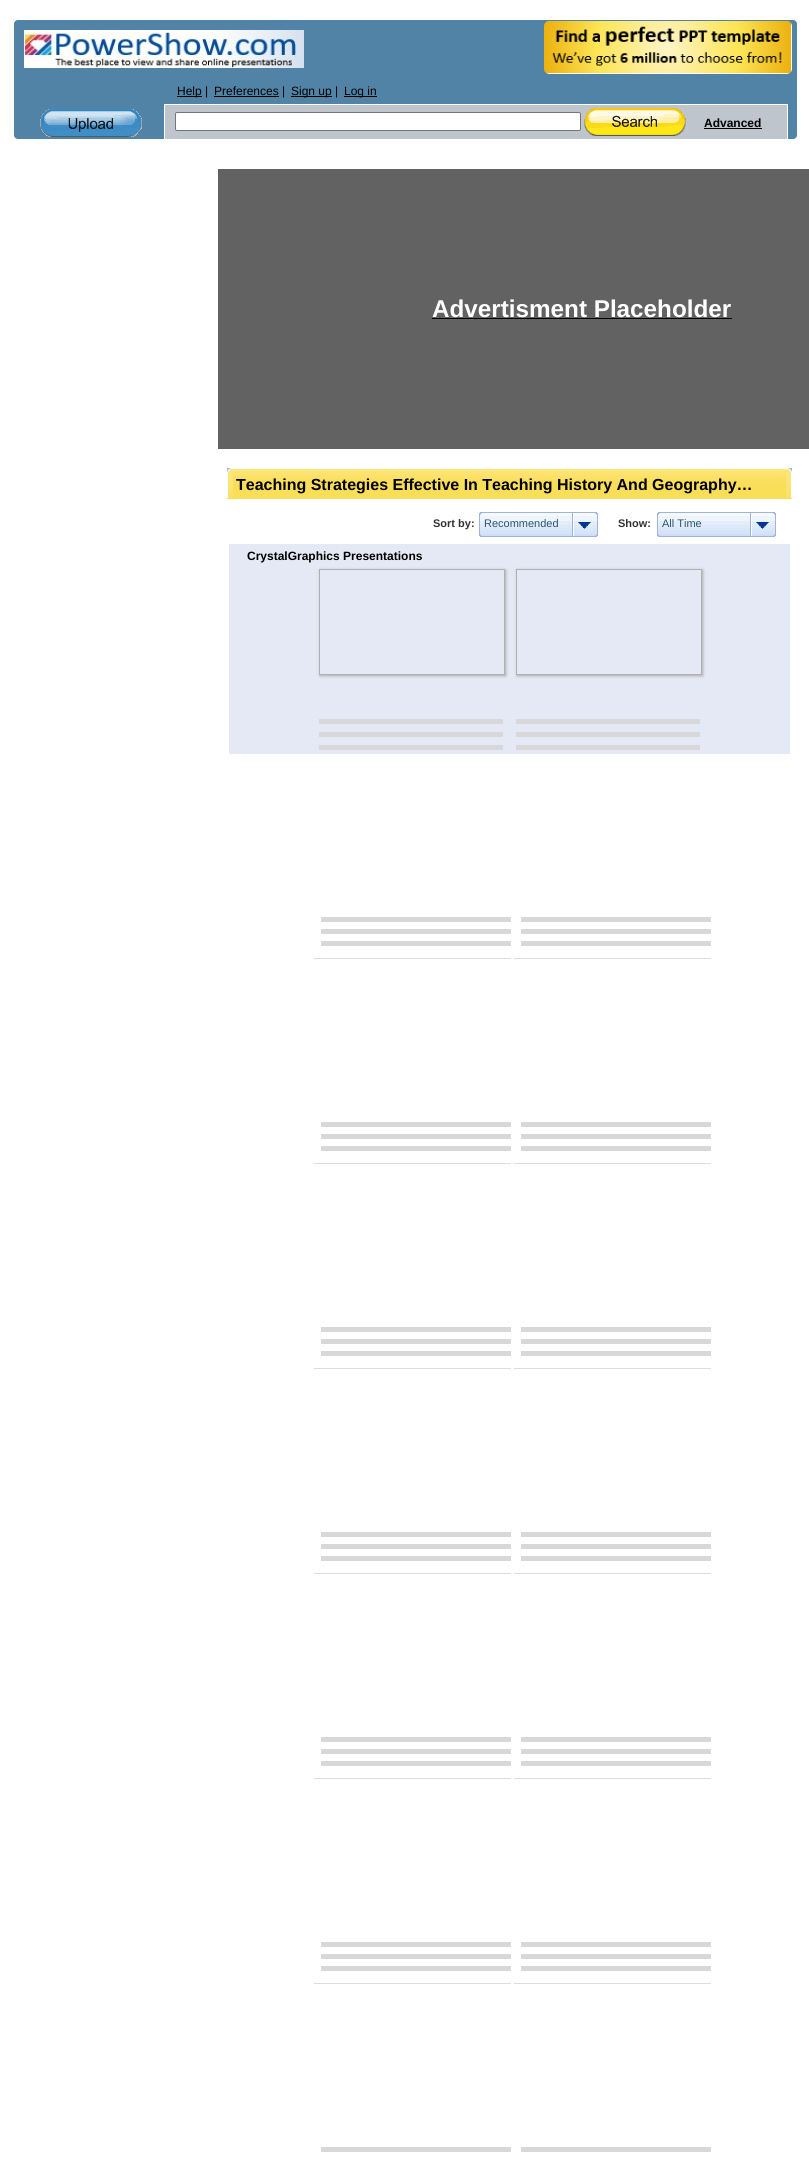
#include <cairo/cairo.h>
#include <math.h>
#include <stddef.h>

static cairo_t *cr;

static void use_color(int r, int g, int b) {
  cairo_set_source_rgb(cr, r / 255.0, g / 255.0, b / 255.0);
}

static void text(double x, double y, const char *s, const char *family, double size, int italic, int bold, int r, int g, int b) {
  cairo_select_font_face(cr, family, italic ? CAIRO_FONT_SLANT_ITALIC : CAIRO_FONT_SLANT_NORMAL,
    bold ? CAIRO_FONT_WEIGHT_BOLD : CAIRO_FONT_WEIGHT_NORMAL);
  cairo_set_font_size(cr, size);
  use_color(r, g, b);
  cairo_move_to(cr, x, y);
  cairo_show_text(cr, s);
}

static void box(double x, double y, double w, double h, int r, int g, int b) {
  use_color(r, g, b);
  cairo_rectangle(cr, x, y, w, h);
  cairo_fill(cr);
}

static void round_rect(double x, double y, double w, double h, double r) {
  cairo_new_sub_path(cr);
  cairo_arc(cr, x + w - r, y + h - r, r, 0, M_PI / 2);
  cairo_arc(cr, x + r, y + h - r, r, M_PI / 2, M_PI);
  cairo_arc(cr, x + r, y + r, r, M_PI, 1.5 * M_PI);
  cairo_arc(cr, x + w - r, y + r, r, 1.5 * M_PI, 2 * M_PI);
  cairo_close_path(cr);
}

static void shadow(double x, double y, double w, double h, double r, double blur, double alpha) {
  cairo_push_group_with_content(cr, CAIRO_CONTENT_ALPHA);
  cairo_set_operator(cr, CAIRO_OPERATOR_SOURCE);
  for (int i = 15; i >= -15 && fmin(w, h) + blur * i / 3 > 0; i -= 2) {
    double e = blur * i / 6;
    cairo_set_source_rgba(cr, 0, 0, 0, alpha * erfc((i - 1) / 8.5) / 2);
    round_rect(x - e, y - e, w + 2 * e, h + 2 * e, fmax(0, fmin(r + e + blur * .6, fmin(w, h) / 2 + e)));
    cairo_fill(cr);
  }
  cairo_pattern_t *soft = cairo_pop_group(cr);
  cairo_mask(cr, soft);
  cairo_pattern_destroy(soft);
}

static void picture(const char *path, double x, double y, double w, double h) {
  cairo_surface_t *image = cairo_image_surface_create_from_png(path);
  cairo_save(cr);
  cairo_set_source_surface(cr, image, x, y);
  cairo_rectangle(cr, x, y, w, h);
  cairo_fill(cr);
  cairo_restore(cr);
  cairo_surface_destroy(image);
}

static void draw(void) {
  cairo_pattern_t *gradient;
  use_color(255, 255, 255);
  cairo_paint(cr);
  use_color(81, 131, 166);
  round_rect(13.5, 19.5, 784, 120, 4.5);
  cairo_fill_preserve(cr);
  use_color(255, 255, 255);
  cairo_set_line_width(cr, 1);
  cairo_stroke(cr);
  picture("img_01.png", 24, 30, 280, 38);
  picture("img_02.png", 544, 21, 248, 53);
  picture("img_03.png", 40, 109, 102, 28);
  box(177, 96, 25, 1, 0, 0, 0);
  box(214, 96, 65, 1, 0, 0, 0);
  box(291, 96, 41, 1, 0, 0, 0);
  box(344, 96, 33, 1, 0, 0, 0);
  box(165, 105, 622, 34, 191, 197, 205);
  box(787, 104, 1, 35, 255, 255, 255);
  box(164, 104, 1, 35, 255, 255, 255);
  box(165, 104, 622, 1, 255, 255, 255);
  round_rect(175.5, 112.5, 405, 18, 1.5);
  cairo_fill_preserve(cr);
  use_color(118, 118, 118);
  cairo_stroke(cr);
  picture("img_04.png", 584, 108, 102, 28);
  box(704, 128, 58, 1, 0, 0, 0);
  box(218, 169, 591, 280, 98, 98, 98);
  box(432, 318, 300, 1, 0, 0, 0);
  gradient = cairo_pattern_create_linear(510, 469, 510, 499);
  cairo_pattern_add_color_stop_rgba(gradient, 0, 1, 0.902, 0.482, 1);
  cairo_pattern_add_color_stop_rgba(gradient, 0.37, 0.98, 0.875, 0.373, 1);
  cairo_pattern_add_color_stop_rgba(gradient, 0.53, 0.976, 0.871, 0.353, 1);
  cairo_pattern_add_color_stop_rgba(gradient, 1, 0.976, 0.871, 0.353, 1);
  cairo_set_source(cr, gradient);
  cairo_pattern_destroy(gradient);
  cairo_rectangle(cr, 227, 469, 565, 30);
  cairo_fill(cr);
  picture("img_05.png", 227, 468, 6, 30);
  picture("img_06.png", 479, 512, 94, 25);
  picture("img_07.png", 573, 512, 25, 25);
  picture("img_06.png", 657, 512, 94, 25);
  picture("img_07.png", 751, 512, 25, 25);
  picture("img_08.png", 786, 468, 6, 30);
  box(229, 544, 561, 210, 229, 233, 245);
  cairo_save(cr);
  cairo_set_fill_rule(cr, CAIRO_FILL_RULE_EVEN_ODD);
  cairo_new_path(cr);
  cairo_move_to(cr, 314, 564);
  cairo_line_to(cr, 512, 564);
  cairo_line_to(cr, 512, 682);
  cairo_line_to(cr, 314, 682);
  cairo_close_path(cr);
  cairo_move_to(cr, 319, 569);
  cairo_line_to(cr, 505, 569);
  cairo_line_to(cr, 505, 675);
  cairo_line_to(cr, 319, 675);
  cairo_close_path(cr);
  cairo_clip(cr);
  use_color(170, 170, 170);
  shadow(320, 570, 186, 106, 0, 1.5, 1);
  cairo_restore(cr);
  cairo_rectangle(cr, 319.5, 569.5, 185, 105);
  use_color(176, 176, 176);
  cairo_stroke(cr);
  box(319, 719, 184, 5, 216, 216, 216);
  box(319, 732, 184, 5, 216, 216, 216);
  box(319, 745, 184, 5, 216, 216, 216);
  cairo_save(cr);
  cairo_set_fill_rule(cr, CAIRO_FILL_RULE_EVEN_ODD);
  cairo_new_path(cr);
  cairo_move_to(cr, 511, 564);
  cairo_line_to(cr, 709, 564);
  cairo_line_to(cr, 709, 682);
  cairo_line_to(cr, 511, 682);
  cairo_close_path(cr);
  cairo_move_to(cr, 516, 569);
  cairo_line_to(cr, 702, 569);
  cairo_line_to(cr, 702, 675);
  cairo_line_to(cr, 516, 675);
  cairo_close_path(cr);
  cairo_clip(cr);
  use_color(170, 170, 170);
  shadow(517, 570, 186, 106, 0, 1.5, 1);
  cairo_restore(cr);
  cairo_rectangle(cr, 516.5, 569.5, 185, 105);
  use_color(176, 176, 176);
  cairo_stroke(cr);
  box(516, 719, 184, 5, 216, 216, 216);
  box(516, 732, 184, 5, 216, 216, 216);
  box(516, 745, 184, 5, 216, 216, 216);
  box(314, 958, 197, 1, 221, 221, 221);
  box(321, 917, 190, 5, 216, 216, 216);
  box(321, 929, 190, 5, 216, 216, 216);
  box(321, 941, 190, 5, 216, 216, 216);
  box(514, 958, 197, 1, 221, 221, 221);
  box(521, 917, 190, 5, 216, 216, 216);
  box(521, 929, 190, 5, 216, 216, 216);
  box(521, 941, 190, 5, 216, 216, 216);
  box(314, 1163, 197, 1, 221, 221, 221);
  box(321, 1122, 190, 5, 216, 216, 216);
  box(321, 1134, 190, 5, 216, 216, 216);
  box(321, 1146, 190, 5, 216, 216, 216);
  box(514, 1163, 197, 1, 221, 221, 221);
  box(521, 1122, 190, 5, 216, 216, 216);
  box(521, 1134, 190, 5, 216, 216, 216);
  box(521, 1146, 190, 5, 216, 216, 216);
  box(314, 1368, 197, 1, 221, 221, 221);
  box(321, 1327, 190, 5, 216, 216, 216);
  box(321, 1339, 190, 5, 216, 216, 216);
  box(321, 1351, 190, 5, 216, 216, 216);
  box(514, 1368, 197, 1, 221, 221, 221);
  box(521, 1327, 190, 5, 216, 216, 216);
  box(521, 1339, 190, 5, 216, 216, 216);
  box(521, 1351, 190, 5, 216, 216, 216);
  box(314, 1573, 197, 1, 221, 221, 221);
  box(321, 1532, 190, 5, 216, 216, 216);
  box(321, 1544, 190, 5, 216, 216, 216);
  box(321, 1556, 190, 5, 216, 216, 216);
  box(514, 1573, 197, 1, 221, 221, 221);
  box(521, 1532, 190, 5, 216, 216, 216);
  box(521, 1544, 190, 5, 216, 216, 216);
  box(521, 1556, 190, 5, 216, 216, 216);
  box(314, 1778, 197, 1, 221, 221, 221);
  box(321, 1737, 190, 5, 216, 216, 216);
  box(321, 1749, 190, 5, 216, 216, 216);
  box(321, 1761, 190, 5, 216, 216, 216);
  box(514, 1778, 197, 1, 221, 221, 221);
  box(521, 1737, 190, 5, 216, 216, 216);
  box(521, 1749, 190, 5, 216, 216, 216);
  box(521, 1761, 190, 5, 216, 216, 216);
  box(314, 1983, 197, 1, 221, 221, 221);
  box(321, 1942, 190, 5, 216, 216, 216);
  box(321, 1954, 190, 5, 216, 216, 216);
  box(321, 1966, 190, 5, 216, 216, 216);
  box(514, 1983, 197, 1, 221, 221, 221);
  box(521, 1942, 190, 5, 216, 216, 216);
  box(521, 1954, 190, 5, 216, 216, 216);
  box(521, 1966, 190, 5, 216, 216, 216);
  box(321, 2147, 190, 5, 216, 216, 216);
  box(521, 2147, 190, 5, 216, 216, 216);
  text(177, 95, "Help |", "Liberation Sans", 12, 0, 0, 0, 0, 0);
  text(214, 95, "Preferences |", "Liberation Sans", 12, 0, 0, 0, 0, 0);
  text(291, 95, "Sign up |", "Liberation Sans", 12, 0, 0, 0, 0, 0);
  text(344, 95, "Log in", "Liberation Sans", 12, 0, 0, 0, 0, 0);
  text(704, 127, "Advanced", "Liberation Sans", 12, 0, 1, 0, 0, 0);
  text(432, 317, "Advertisment Placeholder", "Liberation Sans", 24.25, 0, 1, 255, 255, 255);
  text(236, 490, "Teaching Strategies Effective In Teaching History And Geography…", "Liberation Sans", 16, 0, 1, 0, 0, 0);
  text(433, 527, "Sort by:", "Liberation Sans", 11, 0, 1, 51, 51, 51);
  text(484, 527, "Recommended", "Liberation Sans", 11, 0, 0, 44, 85, 111);
  text(618, 527, "Show:", "Liberation Sans", 11, 0, 1, 51, 51, 51);
  text(662, 527, "All Time", "Liberation Sans", 11, 0, 0, 44, 85, 111);
  text(247, 560, "CrystalGraphics Presentations", "Liberation Sans", 12, 0, 1, 0, 0, 0);
}

int main(void) {
  cairo_surface_t *surface = cairo_image_surface_create(CAIRO_FORMAT_RGB24, 809, 2159);
  cr = cairo_create(surface);
  cairo_font_options_t *options = cairo_font_options_create();
  cairo_font_options_set_hint_metrics(options, CAIRO_HINT_METRICS_OFF);
  cairo_font_options_set_hint_style(options, CAIRO_HINT_STYLE_NONE);
  cairo_set_font_options(cr, options);
  cairo_set_miter_limit(cr, 4);
  draw();
  cairo_surface_write_to_png(surface, "out.png");
  cairo_font_options_destroy(options);
  cairo_destroy(cr);
  cairo_surface_destroy(surface);
  return 0;
}
